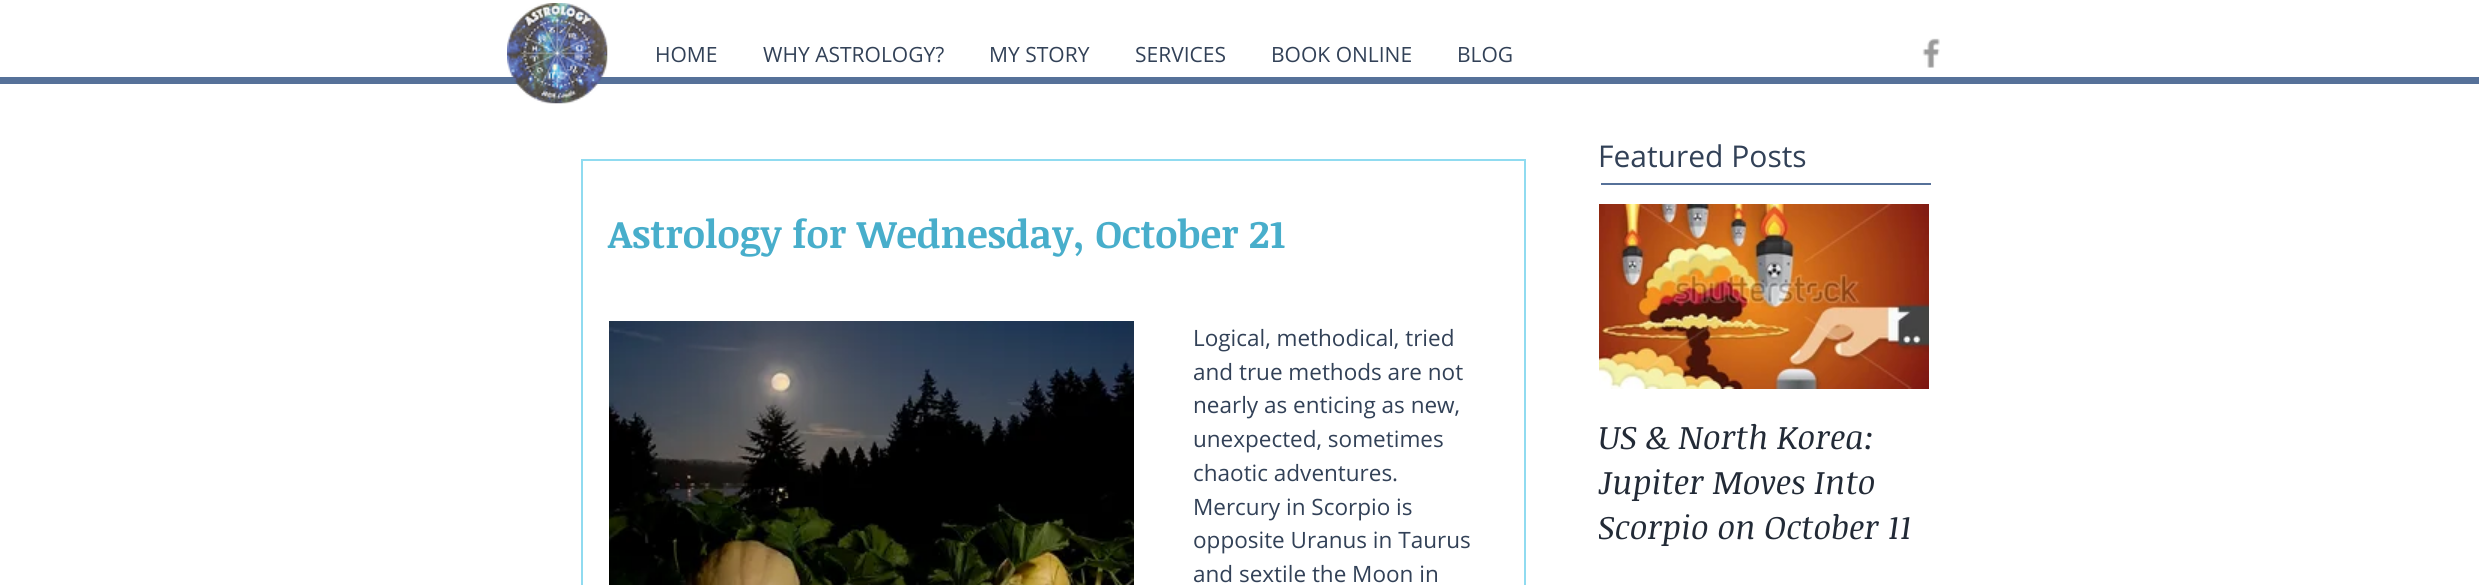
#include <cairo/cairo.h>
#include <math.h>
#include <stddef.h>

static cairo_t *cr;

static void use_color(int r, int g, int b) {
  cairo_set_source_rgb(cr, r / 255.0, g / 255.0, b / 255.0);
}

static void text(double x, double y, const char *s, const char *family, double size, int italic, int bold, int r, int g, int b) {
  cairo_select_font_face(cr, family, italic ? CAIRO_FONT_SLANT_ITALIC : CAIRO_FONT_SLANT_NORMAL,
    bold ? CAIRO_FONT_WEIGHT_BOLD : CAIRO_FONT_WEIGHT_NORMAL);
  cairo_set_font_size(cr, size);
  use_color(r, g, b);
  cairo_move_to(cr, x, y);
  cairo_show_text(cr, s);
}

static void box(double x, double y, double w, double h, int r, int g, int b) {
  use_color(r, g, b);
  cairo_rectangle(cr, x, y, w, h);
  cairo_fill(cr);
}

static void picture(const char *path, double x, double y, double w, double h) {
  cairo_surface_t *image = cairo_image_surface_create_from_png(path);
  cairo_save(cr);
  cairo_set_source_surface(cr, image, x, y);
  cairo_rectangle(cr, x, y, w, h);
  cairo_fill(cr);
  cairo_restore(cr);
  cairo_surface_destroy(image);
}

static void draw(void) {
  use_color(255, 255, 255);
  cairo_paint(cr);
  box(0, 77, 2479, 7, 86, 113, 153);
  picture("img_01.png", 507, 3, 101, 101);
  picture("img_02.png", 1922, 38, 18, 30);
  box(1601, 183, 330, 2, 86, 113, 153);
  cairo_rectangle(cr, 582, 160, 943, 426);
  use_color(144, 219, 240);
  cairo_stroke(cr);
  picture("img_03.png", 609, 321, 525, 264);
  picture("img_04.png", 1599, 204, 330, 185);
  text(655, 62, "HOME", "Open Sans", 21, 0, 0, 50, 65, 87);
  text(763, 62, "WHY ASTROLOGY?", "Open Sans", 21, 0, 0, 50, 65, 87);
  text(989, 62, "MY STORY", "Open Sans", 21, 0, 0, 50, 65, 87);
  text(1135, 62, "SERVICES", "Open Sans", 21, 0, 0, 50, 65, 87);
  text(1271, 62, "BOOK ONLINE", "Open Sans", 21, 0, 0, 50, 65, 87);
  text(1457, 62, "BLOG", "Open Sans", 21, 0, 0, 50, 65, 87);
  text(1598, 167, "Featured Posts", "Open Sans", 30, 0, 0, 50, 65, 87);
  text(608, 248, "Astrology for Wednesday, October 21", "Noticia Text", 39, 0, 1, 72, 174, 203);
  text(1193, 346, "Logical, methodical, tried", "Open Sans", 22.5, 0, 0, 50, 65, 87);
  text(1193, 380, "and true methods are not", "Open Sans", 22.5, 0, 0, 50, 65, 87);
  text(1193, 413, "nearly as enticing as new,", "Open Sans", 22.5, 0, 0, 50, 65, 87);
  text(1193, 447, "unexpected, sometimes", "Open Sans", 22.5, 0, 0, 50, 65, 87);
  text(1193, 481, "chaotic adventures.", "Open Sans", 22.5, 0, 0, 50, 65, 87);
  text(1193, 515, "Mercury in Scorpio is", "Open Sans", 22.5, 0, 0, 50, 65, 87);
  text(1193, 548, "opposite Uranus in Taurus", "Open Sans", 22.5, 0, 0, 50, 65, 87);
  text(1193, 582, "and sextile the Moon in", "Open Sans", 22.5, 0, 0, 50, 65, 87);
  text(1598, 449, "US & North Korea:", "Noticia Text", 33, 1, 0, 34, 42, 54);
  text(1598, 494, "Jupiter Moves Into", "Noticia Text", 33, 1, 0, 34, 42, 54);
  cairo_save(cr);
  cairo_rectangle(cr, 1599, 413, 330, 135);
  cairo_clip(cr);
  text(1598, 539, "Scorpio on October 11", "Noticia Text", 33, 1, 0, 34, 42, 54);
  cairo_restore(cr);
}

int main(void) {
  cairo_surface_t *surface = cairo_image_surface_create(CAIRO_FORMAT_RGB24, 2479, 585);
  cr = cairo_create(surface);
  cairo_font_options_t *options = cairo_font_options_create();
  cairo_font_options_set_hint_metrics(options, CAIRO_HINT_METRICS_OFF);
  cairo_font_options_set_hint_style(options, CAIRO_HINT_STYLE_NONE);
  cairo_set_font_options(cr, options);
  cairo_set_miter_limit(cr, 4);
  draw();
  cairo_surface_write_to_png(surface, "out.png");
  cairo_font_options_destroy(options);
  cairo_destroy(cr);
  cairo_surface_destroy(surface);
  return 0;
}
